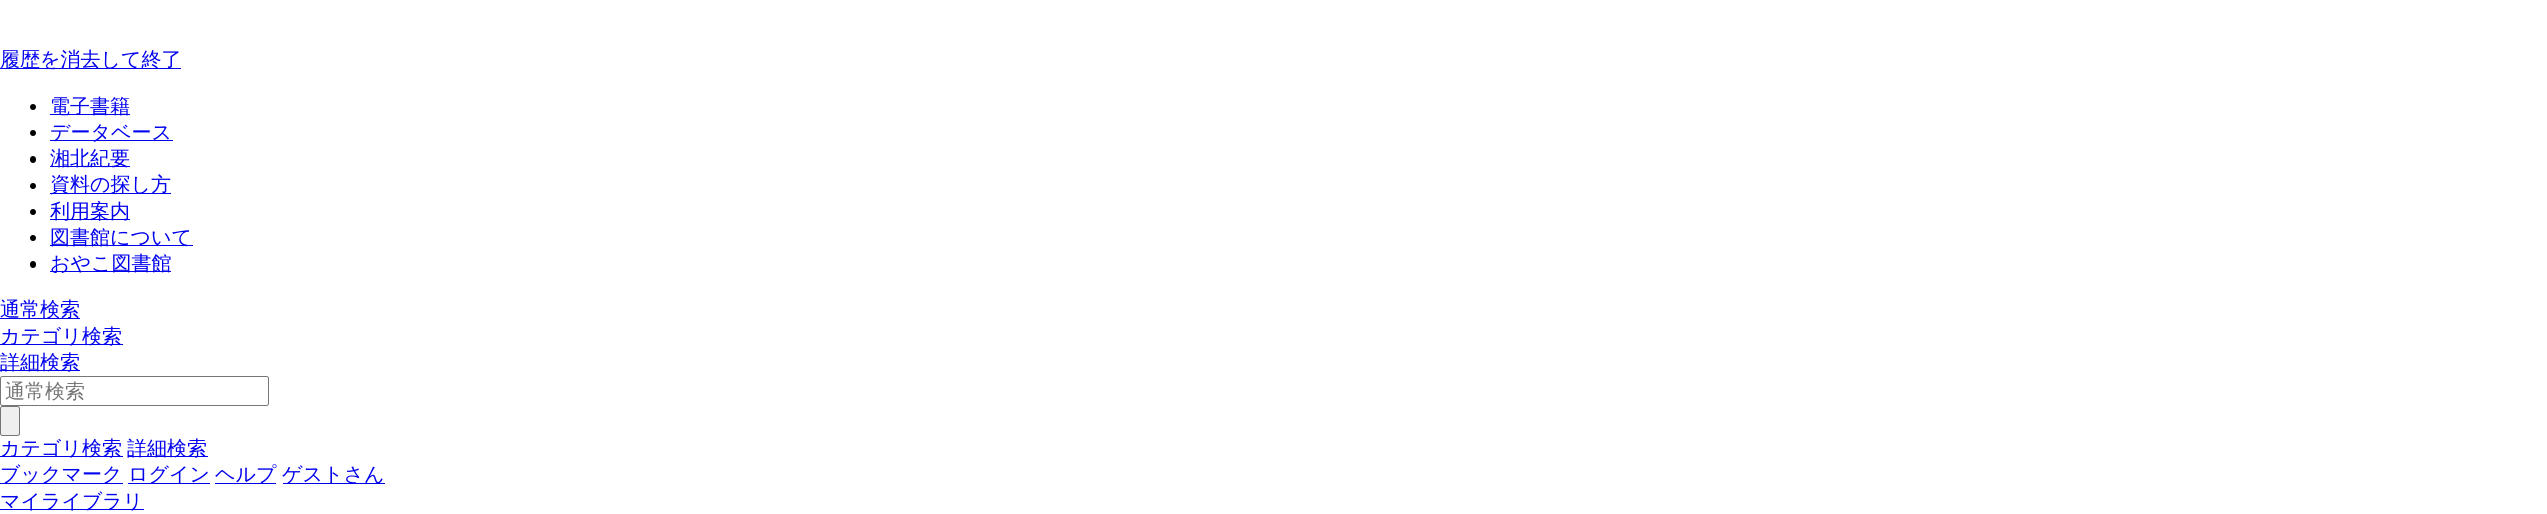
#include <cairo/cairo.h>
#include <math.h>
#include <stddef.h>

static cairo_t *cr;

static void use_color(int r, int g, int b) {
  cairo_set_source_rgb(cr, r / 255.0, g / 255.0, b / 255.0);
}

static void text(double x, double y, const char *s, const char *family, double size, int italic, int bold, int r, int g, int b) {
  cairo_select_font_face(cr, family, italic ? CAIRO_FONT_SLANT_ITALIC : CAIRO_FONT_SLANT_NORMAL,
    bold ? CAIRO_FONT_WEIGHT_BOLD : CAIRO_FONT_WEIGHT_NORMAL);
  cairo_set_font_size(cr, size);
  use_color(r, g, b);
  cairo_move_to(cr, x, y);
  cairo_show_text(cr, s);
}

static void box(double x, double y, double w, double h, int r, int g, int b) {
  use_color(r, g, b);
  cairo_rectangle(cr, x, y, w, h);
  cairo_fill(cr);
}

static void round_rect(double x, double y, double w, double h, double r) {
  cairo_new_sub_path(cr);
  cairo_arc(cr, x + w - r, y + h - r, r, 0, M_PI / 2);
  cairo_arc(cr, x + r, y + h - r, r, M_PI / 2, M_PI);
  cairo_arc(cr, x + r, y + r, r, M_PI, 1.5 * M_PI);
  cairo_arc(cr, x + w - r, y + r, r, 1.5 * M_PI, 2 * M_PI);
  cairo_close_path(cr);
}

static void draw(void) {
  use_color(255, 255, 255);
  cairo_paint(cr);
  box(0, 68, 181, 1, 0, 0, 238);
  use_color(0, 0, 0);
  cairo_arc(cr, 33, 107, 3, 0, 2 * M_PI);
  cairo_fill(cr);
  box(50, 114, 80, 1, 0, 0, 238);
  use_color(0, 0, 0);
  cairo_arc(cr, 33, 133, 3, 0, 2 * M_PI);
  cairo_fill(cr);
  box(50, 140, 123, 1, 0, 0, 238);
  use_color(0, 0, 0);
  round_rect(30, 156, 6, 7, 3);
  cairo_fill(cr);
  box(50, 166, 80, 1, 0, 0, 238);
  use_color(0, 0, 0);
  cairo_arc(cr, 33, 186, 3, 0, 2 * M_PI);
  cairo_fill(cr);
  box(50, 193, 121, 1, 0, 0, 238);
  use_color(0, 0, 0);
  cairo_arc(cr, 33, 212, 3, 0, 2 * M_PI);
  cairo_fill(cr);
  box(50, 219, 80, 1, 0, 0, 238);
  use_color(0, 0, 0);
  cairo_arc(cr, 33, 238, 3, 0, 2 * M_PI);
  cairo_fill(cr);
  box(50, 245, 143, 1, 0, 0, 238);
  use_color(0, 0, 0);
  round_rect(30, 261, 6, 7, 3);
  cairo_fill(cr);
  box(50, 271, 121, 1, 0, 0, 238);
  box(0, 318, 80, 1, 0, 0, 238);
  box(0, 344, 123, 1, 0, 0, 238);
  box(0, 370, 80, 1, 0, 0, 238);
  round_rect(0.5, 376.5, 268, 29, 2);
  use_color(118, 118, 118);
  cairo_set_line_width(cr, 1);
  cairo_stroke(cr);
  use_color(239, 239, 239);
  round_rect(0.5, 406.5, 19, 29, 2);
  cairo_fill_preserve(cr);
  use_color(118, 118, 118);
  cairo_stroke(cr);
  box(0, 456, 123, 1, 0, 0, 238);
  box(128, 456, 80, 1, 0, 0, 238);
  box(0, 483, 123, 1, 0, 0, 238);
  box(128, 483, 82, 1, 0, 0, 238);
  box(215, 483, 61, 1, 0, 0, 238);
  box(283, 483, 102, 1, 0, 0, 238);
  box(0, 509, 144, 1, 0, 0, 238);
  text(0, 66, "履歴を消去して終了", "WenQuanYi Zen Hei Medium", 20, 0, 0, 0, 0, 238);
  text(50, 113, "電子書籍", "WenQuanYi Zen Hei Medium", 20, 0, 0, 0, 0, 238);
  text(50, 139, "データベース", "WenQuanYi Zen Hei Medium", 20, 0, 0, 0, 0, 238);
  text(50, 165, "湘北紀要", "WenQuanYi Zen Hei Medium", 20, 0, 0, 0, 0, 238);
  text(50, 191, "資料の探し方", "WenQuanYi Zen Hei Medium", 20, 0, 0, 0, 0, 238);
  text(50, 218, "利用案内", "WenQuanYi Zen Hei Medium", 20, 0, 0, 0, 0, 238);
  text(50, 244, "図書館について", "WenQuanYi Zen Hei Medium", 20, 0, 0, 0, 0, 238);
  text(50, 270, "おやこ図書館", "WenQuanYi Zen Hei Medium", 20, 0, 0, 0, 0, 238);
  text(0, 316, "通常検索", "WenQuanYi Zen Hei Medium", 20, 0, 0, 0, 0, 238);
  text(0, 343, "カテゴリ検索", "WenQuanYi Zen Hei Medium", 20, 0, 0, 0, 0, 238);
  text(0, 369, "詳細検索", "WenQuanYi Zen Hei Medium", 20, 0, 0, 0, 0, 238);
  text(5, 398, "通常検索", "WenQuanYi Zen Hei Medium", 20, 0, 0, 117, 117, 117);
  text(0, 455, "カテゴリ検索", "WenQuanYi Zen Hei Medium", 20, 0, 0, 0, 0, 238);
  text(127, 455, "詳細検索", "WenQuanYi Zen Hei Medium", 20, 0, 0, 0, 0, 238);
  text(0, 481, "ブックマーク", "WenQuanYi Zen Hei Medium", 20, 0, 0, 0, 0, 238);
  text(128, 481, "ログイン", "WenQuanYi Zen Hei Medium", 20, 0, 0, 0, 0, 238);
  text(215, 481, "ヘルプ", "WenQuanYi Zen Hei Medium", 20, 0, 0, 0, 0, 238);
  text(282, 481, "ゲストさん", "WenQuanYi Zen Hei Medium", 20, 0, 0, 0, 0, 238);
  text(0, 508, "マイライブラリ", "WenQuanYi Zen Hei Medium", 20, 0, 0, 0, 0, 238);
}

int main(void) {
  cairo_surface_t *surface = cairo_image_surface_create(CAIRO_FORMAT_RGB24, 2547, 514);
  cr = cairo_create(surface);
  cairo_font_options_t *options = cairo_font_options_create();
  cairo_font_options_set_hint_metrics(options, CAIRO_HINT_METRICS_OFF);
  cairo_font_options_set_hint_style(options, CAIRO_HINT_STYLE_NONE);
  cairo_set_font_options(cr, options);
  cairo_set_miter_limit(cr, 4);
  draw();
  cairo_surface_write_to_png(surface, "out.png");
  cairo_font_options_destroy(options);
  cairo_destroy(cr);
  cairo_surface_destroy(surface);
  return 0;
}
